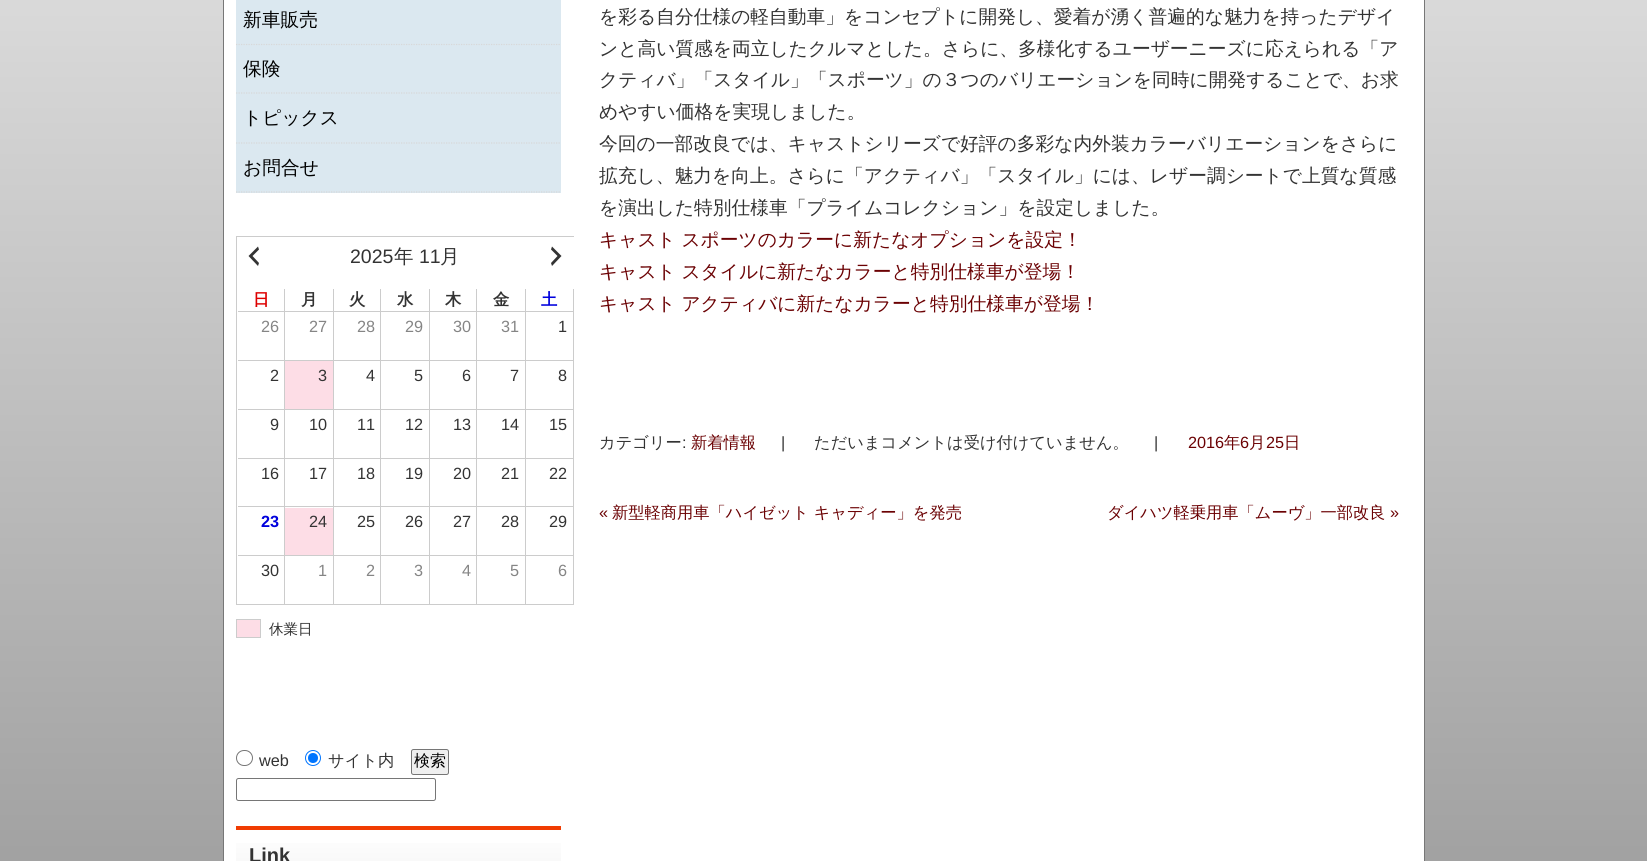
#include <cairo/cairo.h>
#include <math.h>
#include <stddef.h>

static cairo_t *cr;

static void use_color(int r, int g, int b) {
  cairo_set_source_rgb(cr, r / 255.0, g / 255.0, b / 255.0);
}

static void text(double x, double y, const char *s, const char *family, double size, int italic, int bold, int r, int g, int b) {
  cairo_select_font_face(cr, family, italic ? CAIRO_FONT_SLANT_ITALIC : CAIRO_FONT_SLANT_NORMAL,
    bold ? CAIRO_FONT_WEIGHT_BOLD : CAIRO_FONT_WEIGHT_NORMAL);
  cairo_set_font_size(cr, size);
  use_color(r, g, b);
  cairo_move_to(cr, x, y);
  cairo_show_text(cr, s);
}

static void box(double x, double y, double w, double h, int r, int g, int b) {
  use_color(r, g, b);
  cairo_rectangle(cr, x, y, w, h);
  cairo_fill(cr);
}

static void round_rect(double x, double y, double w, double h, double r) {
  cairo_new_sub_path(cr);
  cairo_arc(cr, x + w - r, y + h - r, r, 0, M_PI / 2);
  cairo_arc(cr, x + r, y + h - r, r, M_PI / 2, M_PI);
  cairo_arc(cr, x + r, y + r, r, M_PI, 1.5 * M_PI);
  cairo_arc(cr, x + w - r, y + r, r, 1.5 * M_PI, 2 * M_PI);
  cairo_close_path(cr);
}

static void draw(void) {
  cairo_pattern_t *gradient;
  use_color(255, 255, 255);
  cairo_paint(cr);
  gradient = cairo_pattern_create_linear(824, -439, 824, 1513);
  cairo_pattern_add_color_stop_rgba(gradient, 0, 0.965, 0.965, 0.965, 1);
  cairo_pattern_add_color_stop_rgba(gradient, 1, 0.467, 0.467, 0.467, 1);
  cairo_set_source(cr, gradient);
  cairo_pattern_destroy(gradient);
  cairo_rectangle(cr, 0, 0, 1647, 861);
  cairo_fill(cr);
  box(224, 0, 1200, 861, 255, 255, 255);
  box(1424, 0, 1, 861, 119, 119, 119);
  box(223, 0, 1, 861, 119, 119, 119);
  box(236, 0, 325, 193, 219, 232, 240);
  cairo_new_path(cr);
  cairo_move_to(cr, 236, 44.5);
  cairo_line_to(cr, 561, 44.5);
  use_color(216, 216, 216);
  cairo_set_line_width(cr, 1.2);
  cairo_set_dash(cr, (double[]){1.25, 1.25}, 2, 0);
  cairo_stroke(cr);
  cairo_new_path(cr);
  cairo_move_to(cr, 236, 93);
  cairo_line_to(cr, 561, 93);
  cairo_stroke(cr);
  cairo_new_path(cr);
  cairo_move_to(cr, 236, 143);
  cairo_line_to(cr, 561, 143);
  cairo_stroke(cr);
  cairo_new_path(cr);
  cairo_move_to(cr, 236, 192);
  cairo_line_to(cr, 561, 192);
  cairo_stroke(cr);
  box(236, 236, 338, 1, 204, 204, 204);
  box(236, 604, 338, 1, 204, 204, 204);
  box(236, 236, 1, 369, 204, 204, 204);
  use_color(51, 51, 51);
  cairo_new_path(cr);
  cairo_move_to(cr, 259, 249.5);
  cairo_line_to(cr, 252.5, 256);
  cairo_line_to(cr, 259, 263);
  cairo_line_to(cr, 258, 266);
  cairo_line_to(cr, 248.5, 256);
  cairo_line_to(cr, 258, 246.5);
  cairo_close_path(cr);
  cairo_fill(cr);
  cairo_new_path(cr);
  cairo_move_to(cr, 551, 263);
  cairo_line_to(cr, 557.5, 256);
  cairo_line_to(cr, 551, 249.5);
  cairo_line_to(cr, 552, 246.5);
  cairo_line_to(cr, 561.5, 256);
  cairo_line_to(cr, 552, 266);
  cairo_close_path(cr);
  cairo_fill(cr);
  box(284, 289, 1, 22, 204, 204, 204);
  box(333, 289, 1, 22, 204, 204, 204);
  box(380, 289, 1, 22, 204, 204, 204);
  box(429, 289, 1, 22, 204, 204, 204);
  box(476, 289, 1, 22, 204, 204, 204);
  box(525, 289, 1, 22, 204, 204, 204);
  box(573, 289, 1, 22, 204, 204, 204);
  box(238, 311, 336, 1, 204, 204, 204);
  box(284, 311, 1, 49, 204, 204, 204);
  box(333, 311, 1, 49, 204, 204, 204);
  box(380, 311, 1, 49, 204, 204, 204);
  box(429, 311, 1, 49, 204, 204, 204);
  box(476, 311, 1, 49, 204, 204, 204);
  box(525, 311, 1, 49, 204, 204, 204);
  box(573, 311, 1, 49, 204, 204, 204);
  box(238, 360, 336, 1, 204, 204, 204);
  box(284, 360, 1, 49, 204, 204, 204);
  box(333, 360, 1, 49, 204, 204, 204);
  box(285, 361, 48, 48, 253, 221, 230);
  box(380, 360, 1, 49, 204, 204, 204);
  box(429, 360, 1, 49, 204, 204, 204);
  box(476, 360, 1, 49, 204, 204, 204);
  box(525, 360, 1, 49, 204, 204, 204);
  box(573, 360, 1, 49, 204, 204, 204);
  box(238, 409, 336, 1, 204, 204, 204);
  box(284, 409, 1, 49, 204, 204, 204);
  box(333, 409, 1, 49, 204, 204, 204);
  box(380, 409, 1, 49, 204, 204, 204);
  box(429, 409, 1, 49, 204, 204, 204);
  box(476, 409, 1, 49, 204, 204, 204);
  box(525, 409, 1, 49, 204, 204, 204);
  box(573, 409, 1, 49, 204, 204, 204);
  box(238, 458, 336, 1, 204, 204, 204);
  box(284, 458, 1, 48, 204, 204, 204);
  box(333, 458, 1, 48, 204, 204, 204);
  box(380, 458, 1, 48, 204, 204, 204);
  box(429, 458, 1, 48, 204, 204, 204);
  box(476, 458, 1, 48, 204, 204, 204);
  box(525, 458, 1, 48, 204, 204, 204);
  box(573, 458, 1, 48, 204, 204, 204);
  box(238, 506, 336, 1, 204, 204, 204);
  box(284, 506, 1, 49, 204, 204, 204);
  box(333, 506, 1, 49, 204, 204, 204);
  box(285, 508, 48, 47, 253, 221, 230);
  box(380, 506, 1, 49, 204, 204, 204);
  box(429, 506, 1, 49, 204, 204, 204);
  box(476, 506, 1, 49, 204, 204, 204);
  box(525, 506, 1, 49, 204, 204, 204);
  box(573, 506, 1, 49, 204, 204, 204);
  box(238, 555, 336, 1, 204, 204, 204);
  box(284, 555, 1, 49, 204, 204, 204);
  box(333, 555, 1, 49, 204, 204, 204);
  box(380, 555, 1, 49, 204, 204, 204);
  box(429, 555, 1, 49, 204, 204, 204);
  box(476, 555, 1, 49, 204, 204, 204);
  box(525, 555, 1, 49, 204, 204, 204);
  box(573, 555, 1, 49, 204, 204, 204);
  use_color(253, 221, 230);
  cairo_rectangle(cr, 236.5, 619.5, 24, 18);
  cairo_fill_preserve(cr);
  use_color(204, 204, 204);
  cairo_set_line_width(cr, 1);
  cairo_set_dash(cr, NULL, 0, 0);
  cairo_stroke(cr);
  round_rect(236.5, 750.5, 16, 15, 7.5);
  use_color(118, 118, 118);
  cairo_stroke(cr);
  cairo_arc(cr, 313, 758, 7.5, 0, 2 * M_PI);
  use_color(0, 117, 255);
  cairo_stroke(cr);
  cairo_arc(cr, 313, 758, 5, 0, 2 * M_PI);
  cairo_fill(cr);
  use_color(239, 239, 239);
  round_rect(411.5, 749.5, 37, 25, 2);
  cairo_fill_preserve(cr);
  use_color(118, 118, 118);
  cairo_stroke(cr);
  round_rect(236.5, 778.5, 199, 22, 2);
  cairo_stroke(cr);
  gradient = cairo_pattern_create_linear(399, 830, 399, 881);
  cairo_pattern_add_color_stop_rgba(gradient, 0, 1, 1, 1, 1);
  cairo_pattern_add_color_stop_rgba(gradient, 1, 0.961, 0.961, 0.961, 1);
  cairo_set_source(cr, gradient);
  cairo_pattern_destroy(gradient);
  cairo_rectangle(cr, 236, 843, 325, 18);
  cairo_fill(cr);
  box(236, 826, 325, 4, 240, 60, 2);
  text(243, 26, "新車販売", "WenQuanYi Zen Hei Medium", 18.75, 0, 0, 0, 0, 0);
  text(243, 75, "保険", "WenQuanYi Zen Hei Medium", 18.75, 0, 0, 0, 0, 0);
  text(243, 124, "トピックス", "WenQuanYi Zen Hei Medium", 18.75, 0, 0, 0, 0, 0);
  text(243, 174, "お問合せ", "WenQuanYi Zen Hei Medium", 18.75, 0, 0, 0, 0, 0);
  text(350, 263, "2025", "Liberation Sans", 19.5, 0, 0, 51, 51, 51);
  text(394, 263, "年", "WenQuanYi Zen Hei Medium", 19.5, 0, 0, 51, 51, 51);
  text(419, 263, "11", "Liberation Sans", 19.5, 0, 0, 51, 51, 51);
  text(440, 263, "月", "WenQuanYi Zen Hei Medium", 19.5, 0, 0, 51, 51, 51);
  text(253, 305, "日", "WenQuanYi Zen Hei", 16.25, 0, 1, 221, 0, 0);
  text(301, 305, "月", "WenQuanYi Zen Hei", 16.25, 0, 1, 51, 51, 51);
  text(349, 305, "火", "WenQuanYi Zen Hei", 16.25, 0, 1, 51, 51, 51);
  text(397, 305, "水", "WenQuanYi Zen Hei", 16.25, 0, 1, 51, 51, 51);
  text(445, 305, "木", "WenQuanYi Zen Hei", 16.25, 0, 1, 51, 51, 51);
  text(493, 305, "金", "WenQuanYi Zen Hei", 16.25, 0, 1, 51, 51, 51);
  text(541, 305, "土", "WenQuanYi Zen Hei", 16.25, 0, 1, 0, 0, 221);
  text(261, 332, "26", "Liberation Sans", 16.25, 0, 0, 133, 133, 133);
  text(309, 332, "27", "Liberation Sans", 16.25, 0, 0, 133, 133, 133);
  text(357, 332, "28", "Liberation Sans", 16.25, 0, 0, 133, 133, 133);
  text(405, 332, "29", "Liberation Sans", 16.25, 0, 0, 133, 133, 133);
  text(453, 332, "30", "Liberation Sans", 16.25, 0, 0, 133, 133, 133);
  text(501, 332, "31", "Liberation Sans", 16.25, 0, 0, 133, 133, 133);
  text(558, 332, "1", "Liberation Sans", 16.25, 0, 0, 51, 51, 51);
  text(270, 381, "2", "Liberation Sans", 16.25, 0, 0, 51, 51, 51);
  text(318, 381, "3", "Liberation Sans", 16.25, 0, 0, 51, 51, 51);
  text(366, 381, "4", "Liberation Sans", 16.25, 0, 0, 51, 51, 51);
  text(414, 381, "5", "Liberation Sans", 16.25, 0, 0, 51, 51, 51);
  text(462, 381, "6", "Liberation Sans", 16.25, 0, 0, 51, 51, 51);
  text(510, 381, "7", "Liberation Sans", 16.25, 0, 0, 51, 51, 51);
  text(558, 381, "8", "Liberation Sans", 16.25, 0, 0, 51, 51, 51);
  text(270, 430, "9", "Liberation Sans", 16.25, 0, 0, 51, 51, 51);
  text(309, 430, "10", "Liberation Sans", 16.25, 0, 0, 51, 51, 51);
  text(357, 430, "11", "Liberation Sans", 16.25, 0, 0, 51, 51, 51);
  text(405, 430, "12", "Liberation Sans", 16.25, 0, 0, 51, 51, 51);
  text(453, 430, "13", "Liberation Sans", 16.25, 0, 0, 51, 51, 51);
  text(501, 430, "14", "Liberation Sans", 16.25, 0, 0, 51, 51, 51);
  text(549, 430, "15", "Liberation Sans", 16.25, 0, 0, 51, 51, 51);
  text(261, 479, "16", "Liberation Sans", 16.25, 0, 0, 51, 51, 51);
  text(309, 479, "17", "Liberation Sans", 16.25, 0, 0, 51, 51, 51);
  text(357, 479, "18", "Liberation Sans", 16.25, 0, 0, 51, 51, 51);
  text(405, 479, "19", "Liberation Sans", 16.25, 0, 0, 51, 51, 51);
  text(453, 479, "20", "Liberation Sans", 16.25, 0, 0, 51, 51, 51);
  text(501, 479, "21", "Liberation Sans", 16.25, 0, 0, 51, 51, 51);
  text(549, 479, "22", "Liberation Sans", 16.25, 0, 0, 51, 51, 51);
  text(261, 527, "23", "Liberation Sans", 16.25, 0, 1, 0, 0, 221);
  text(309, 527, "24", "Liberation Sans", 16.25, 0, 0, 51, 51, 51);
  text(357, 527, "25", "Liberation Sans", 16.25, 0, 0, 51, 51, 51);
  text(405, 527, "26", "Liberation Sans", 16.25, 0, 0, 51, 51, 51);
  text(453, 527, "27", "Liberation Sans", 16.25, 0, 0, 51, 51, 51);
  text(501, 527, "28", "Liberation Sans", 16.25, 0, 0, 51, 51, 51);
  text(549, 527, "29", "Liberation Sans", 16.25, 0, 0, 51, 51, 51);
  text(261, 576, "30", "Liberation Sans", 16.25, 0, 0, 51, 51, 51);
  text(318, 576, "1", "Liberation Sans", 16.25, 0, 0, 133, 133, 133);
  text(366, 576, "2", "Liberation Sans", 16.25, 0, 0, 133, 133, 133);
  text(414, 576, "3", "Liberation Sans", 16.25, 0, 0, 133, 133, 133);
  text(462, 576, "4", "Liberation Sans", 16.25, 0, 0, 133, 133, 133);
  text(510, 576, "5", "Liberation Sans", 16.25, 0, 0, 133, 133, 133);
  text(558, 576, "6", "Liberation Sans", 16.25, 0, 0, 133, 133, 133);
  text(269, 634, "休業日", "WenQuanYi Zen Hei Medium", 14.5, 0, 0, 51, 51, 51);
  text(259, 766, "web", "Liberation Sans", 16.25, 0, 0, 51, 51, 51);
  text(328, 766, "サイト内", "WenQuanYi Zen Hei Medium", 16.25, 0, 0, 51, 51, 51);
  text(414, 766, "検索", "WenQuanYi Zen Hei Medium", 16, 0, 0, 0, 0, 0);
  text(249, 862, "Link", "Liberation Sans", 20, 0, 1, 51, 51, 51);
  text(599, 23, "を彩る自分仕様の軽自動車」をコンセプトに開発し、愛着が湧く普遍的な魅力を持ったデザイ", "WenQuanYi Zen Hei Medium", 18.75, 0, 0, 51, 51, 51);
  text(599, 55, "ンと高い質感を両立したクルマとした。さらに、多様化するユーザーニーズに応えられる「ア", "WenQuanYi Zen Hei Medium", 18.75, 0, 0, 51, 51, 51);
  text(599, 86, "クティバ」「スタイル」「スポーツ」の３つのバリエーションを同時に開発することで、お求", "WenQuanYi Zen Hei Medium", 18.75, 0, 0, 51, 51, 51);
  text(599, 118, "めやすい価格を実現しました。", "WenQuanYi Zen Hei Medium", 18.75, 0, 0, 51, 51, 51);
  text(599, 150, "今回の一部改良では、キャストシリーズで好評の多彩な内外装カラーバリエーションをさらに", "WenQuanYi Zen Hei Medium", 18.75, 0, 0, 51, 51, 51);
  text(599, 182, "拡充し、魅力を向上。さらに「アクティバ」「スタイル」には、レザー調シートで上質な質感", "WenQuanYi Zen Hei Medium", 18.75, 0, 0, 51, 51, 51);
  text(599, 214, "を演出した特別仕様車「プライムコレクション」を設定しました。", "WenQuanYi Zen Hei Medium", 18.75, 0, 0, 51, 51, 51);
  text(599, 246, "キャスト スポーツのカラーに新たなオプションを設定！", "WenQuanYi Zen Hei Medium", 18.75, 0, 0, 107, 1, 3);
  text(599, 278, "キャスト スタイルに新たなカラーと特別仕様車が登場！", "WenQuanYi Zen Hei Medium", 18.75, 0, 0, 107, 1, 3);
  text(599, 310, "キャスト アクティバに新たなカラーと特別仕様車が登場！", "WenQuanYi Zen Hei Medium", 18.75, 0, 0, 107, 1, 3);
  text(599, 448, "カテゴリー", "WenQuanYi Zen Hei Medium", 16.25, 0, 0, 51, 51, 51);
  text(682, 448, ":", "Liberation Sans", 16.25, 0, 0, 51, 51, 51);
  text(691, 448, "新着情報", "WenQuanYi Zen Hei Medium", 16.25, 0, 0, 107, 1, 3);
  text(781, 448, "|", "Liberation Sans", 16.25, 0, 0, 51, 51, 51);
  text(814, 448, "ただいまコメントは受け付けていません。", "WenQuanYi Zen Hei Medium", 16.25, 0, 0, 51, 51, 51);
  text(1154, 448, "|", "Liberation Sans", 16.25, 0, 0, 51, 51, 51);
  text(1188, 448, "2016", "Liberation Sans", 16.25, 0, 0, 107, 1, 3);
  text(1224, 448, "年", "WenQuanYi Zen Hei Medium", 16.25, 0, 0, 107, 1, 3);
  text(1240, 448, "6", "Liberation Sans", 16.25, 0, 0, 107, 1, 3);
  text(1249, 448, "月", "WenQuanYi Zen Hei Medium", 16.25, 0, 0, 107, 1, 3);
  text(1266, 448, "25", "Liberation Sans", 16.25, 0, 0, 107, 1, 3);
  text(1284, 448, "日", "WenQuanYi Zen Hei Medium", 16.25, 0, 0, 107, 1, 3);
  text(599, 518, "«", "Liberation Sans", 16.25, 0, 0, 107, 1, 3);
  text(612, 518, "新型軽商用車「ハイゼット キャディー」を発売", "WenQuanYi Zen Hei Medium", 16.25, 0, 0, 107, 1, 3);
  text(1107, 518, "ダイハツ軽乗用車「ムーヴ」一部改良", "WenQuanYi Zen Hei Medium", 16.25, 0, 0, 107, 1, 3);
  text(1390, 518, "»", "Liberation Sans", 16.25, 0, 0, 107, 1, 3);
}

int main(void) {
  cairo_surface_t *surface = cairo_image_surface_create(CAIRO_FORMAT_RGB24, 1647, 861);
  cr = cairo_create(surface);
  cairo_font_options_t *options = cairo_font_options_create();
  cairo_font_options_set_hint_metrics(options, CAIRO_HINT_METRICS_OFF);
  cairo_font_options_set_hint_style(options, CAIRO_HINT_STYLE_NONE);
  cairo_set_font_options(cr, options);
  cairo_set_miter_limit(cr, 4);
  draw();
  cairo_surface_write_to_png(surface, "out.png");
  cairo_font_options_destroy(options);
  cairo_destroy(cr);
  cairo_surface_destroy(surface);
  return 0;
}
